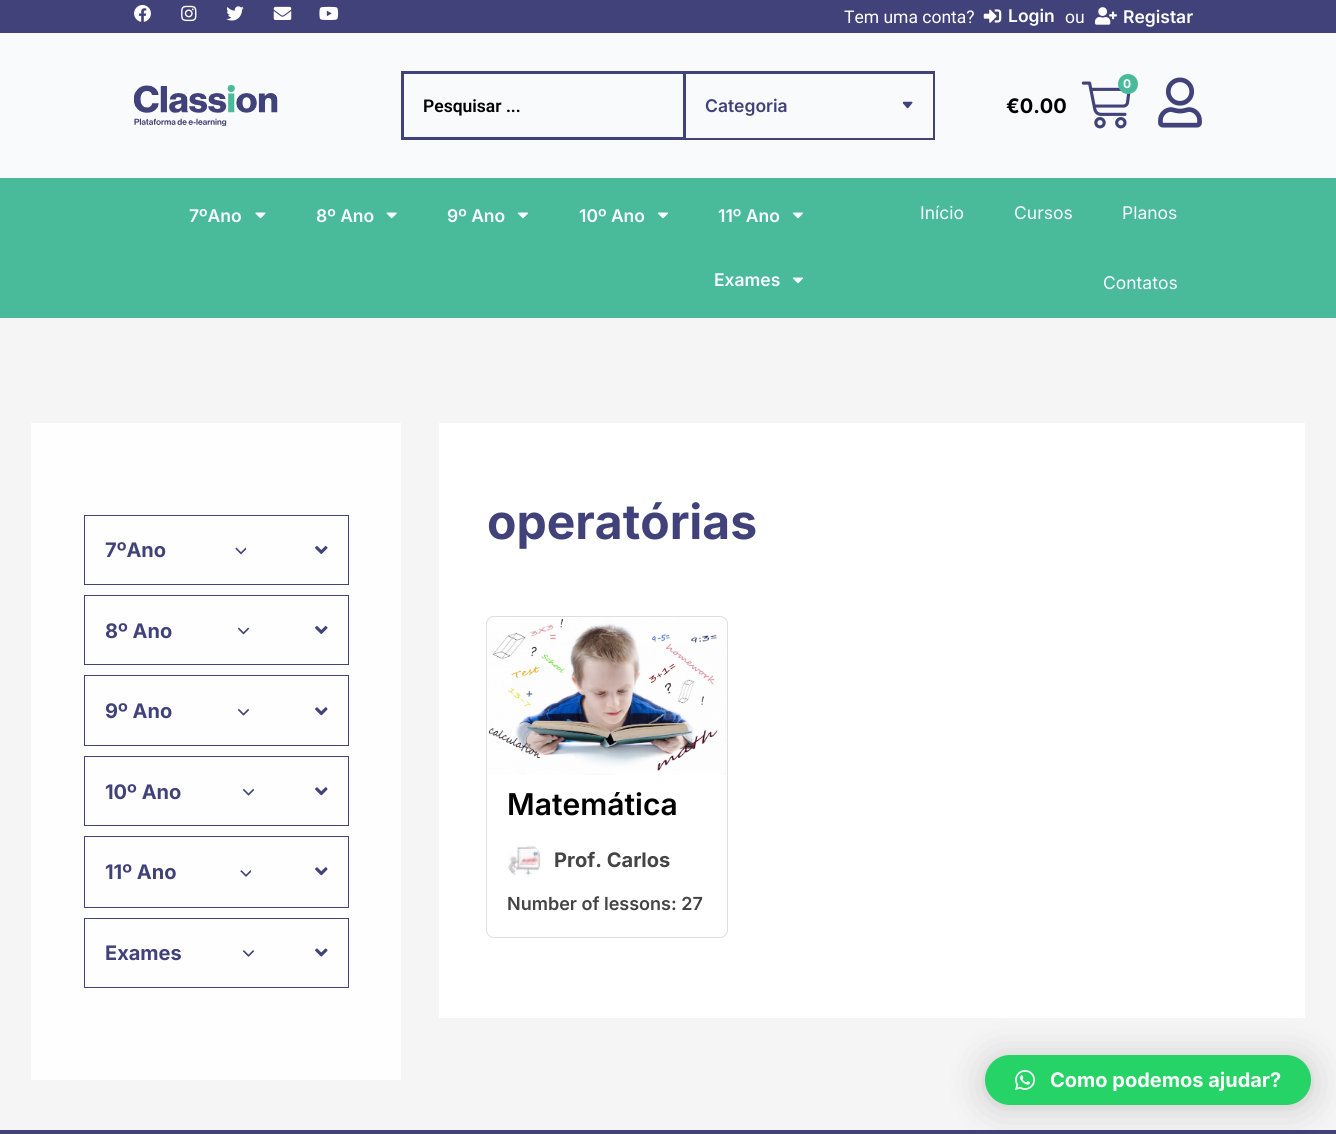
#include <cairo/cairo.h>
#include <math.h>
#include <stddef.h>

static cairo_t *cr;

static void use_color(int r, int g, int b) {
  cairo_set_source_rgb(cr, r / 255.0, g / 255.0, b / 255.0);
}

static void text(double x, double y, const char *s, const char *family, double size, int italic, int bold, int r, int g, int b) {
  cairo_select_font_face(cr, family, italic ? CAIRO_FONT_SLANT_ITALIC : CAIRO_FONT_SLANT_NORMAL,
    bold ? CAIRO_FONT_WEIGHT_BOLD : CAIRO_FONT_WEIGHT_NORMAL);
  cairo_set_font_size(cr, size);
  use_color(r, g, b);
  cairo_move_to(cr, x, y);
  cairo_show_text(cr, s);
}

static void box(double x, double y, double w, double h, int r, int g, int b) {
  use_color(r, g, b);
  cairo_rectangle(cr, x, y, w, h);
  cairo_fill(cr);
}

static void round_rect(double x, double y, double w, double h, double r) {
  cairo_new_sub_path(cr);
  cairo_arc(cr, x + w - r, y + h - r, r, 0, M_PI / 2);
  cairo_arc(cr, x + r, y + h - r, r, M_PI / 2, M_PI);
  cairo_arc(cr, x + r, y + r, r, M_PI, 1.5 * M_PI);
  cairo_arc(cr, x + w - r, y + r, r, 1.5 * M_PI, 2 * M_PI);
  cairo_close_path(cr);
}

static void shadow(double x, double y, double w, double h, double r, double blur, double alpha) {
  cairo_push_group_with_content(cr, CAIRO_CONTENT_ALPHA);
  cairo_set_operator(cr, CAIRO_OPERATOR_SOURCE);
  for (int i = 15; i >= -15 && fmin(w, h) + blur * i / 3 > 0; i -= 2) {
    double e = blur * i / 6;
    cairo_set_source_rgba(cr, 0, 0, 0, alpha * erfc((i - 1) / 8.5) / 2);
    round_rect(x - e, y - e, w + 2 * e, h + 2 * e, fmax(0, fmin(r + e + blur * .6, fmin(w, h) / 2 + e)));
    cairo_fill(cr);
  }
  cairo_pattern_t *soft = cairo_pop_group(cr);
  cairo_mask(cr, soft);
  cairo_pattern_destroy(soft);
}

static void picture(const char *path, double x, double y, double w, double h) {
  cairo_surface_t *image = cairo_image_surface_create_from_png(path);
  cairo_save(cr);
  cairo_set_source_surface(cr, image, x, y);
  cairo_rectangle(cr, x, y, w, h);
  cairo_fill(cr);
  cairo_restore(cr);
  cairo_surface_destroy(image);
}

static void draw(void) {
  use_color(245, 245, 245);
  cairo_paint(cr);
  box(0, 0, 1336, 33, 66, 66, 122);
  picture("img_01.png", 134, 5, 17, 17);
  picture("img_02.png", 181, 5, 16, 17);
  picture("img_03.png", 226, 6, 18, 15);
  picture("img_04.png", 273, 6, 19, 14);
  picture("img_05.png", 319, 6, 20, 14);
  picture("img_06.png", 983, 9, 19, 14);
  picture("img_07.png", 1095, 7, 22, 18);
  box(0, 33, 1336, 145, 249, 250, 251);
  picture("img_08.png", 134, 85, 144, 41);
  cairo_rectangle(cr, 402.5, 72.5, 531, 66);
  use_color(66, 66, 122);
  cairo_set_line_width(cr, 3);
  cairo_stroke(cr);
  box(686, 74, 247, 64, 249, 250, 251);
  box(683, 74, 3, 64, 66, 66, 122);
  picture("img_09.png", 903, 101, 10, 8);
  picture("img_10.png", 1081, 81, 50, 48);
  use_color(73, 186, 154);
  cairo_arc(cr, 1128, 84, 10, 0, 2 * M_PI);
  cairo_fill(cr);
  picture("img_11.png", 1158, 77, 44, 51);
  box(0, 178, 1336, 140, 73, 186, 154);
  picture("img_12.png", 255, 212, 11, 7);
  picture("img_13.png", 386, 212, 11, 7);
  picture("img_14.png", 517, 212, 11, 7);
  picture("img_14.png", 657, 212, 11, 7);
  picture("img_14.png", 792, 212, 11, 7);
  picture("img_14.png", 792, 277, 11, 7);
  box(31, 423, 370, 657, 254, 254, 254);
  cairo_rectangle(cr, 84.5, 515.5, 264, 69);
  use_color(66, 66, 122);
  cairo_set_line_width(cr, 1);
  cairo_stroke(cr);
  picture("img_15.png", 235, 547, 11, 8);
  picture("img_16.png", 315, 546, 13, 8);
  cairo_rectangle(cr, 84.5, 595.5, 264, 69);
  cairo_stroke(cr);
  picture("img_17.png", 238, 627, 12, 8);
  picture("img_16.png", 315, 626, 13, 8);
  cairo_rectangle(cr, 84.5, 675.5, 264, 70);
  cairo_stroke(cr);
  picture("img_18.png", 238, 708, 12, 8);
  picture("img_19.png", 315, 707, 13, 9);
  cairo_rectangle(cr, 84.5, 756.5, 264, 69);
  cairo_stroke(cr);
  picture("img_20.png", 243, 788, 11, 8);
  picture("img_19.png", 315, 787, 13, 9);
  cairo_rectangle(cr, 84.5, 836.5, 264, 71);
  cairo_stroke(cr);
  picture("img_21.png", 240, 870, 11, 7);
  picture("img_19.png", 315, 867, 13, 9);
  cairo_rectangle(cr, 84.5, 918.5, 264, 69);
  cairo_stroke(cr);
  picture("img_22.png", 243, 950, 12, 7);
  picture("img_23.png", 315, 948, 13, 9);
  box(439, 423, 866, 595, 255, 255, 255);
  round_rect(486.5, 616.5, 241, 321, 7.5);
  use_color(222, 222, 222);
  cairo_stroke(cr);
  picture("img_24.png", 488, 618, 238, 157);
  picture("img_25.png", 508, 843, 33, 34);
  box(0, 1130, 1336, 4, 66, 66, 122);
  use_color(0, 0, 0);
  shadow(985, 1058, 326, 50, 25, 20, 0.16);
  shadow(985, 1056, 326, 50, 25, 4, 0.06);
  use_color(37, 211, 102);
  round_rect(985, 1055, 326, 50, 25);
  cairo_fill(cr);
  picture("img_26.png", 1015, 1070, 20, 20);
  text(844, 23, "Tem uma conta?", "Roboto", 17.5, 0, 0, 255, 255, 255);
  text(1008, 22, "Login", "Inter SemiBold", 17.5, 0, 0, 255, 255, 255);
  text(1065, 23, "ou", "Roboto", 17.5, 0, 0, 255, 255, 255);
  text(1123, 23, "Registar", "Inter SemiBold", 17.5, 0, 0, 255, 255, 255);
  text(423, 112, "Pesquisar ...", "Roboto SemiBold", 17.5, 0, 0, 1, 1, 1);
  text(705, 112, "Categoria", "Inter SemiBold", 17.5, 0, 0, 66, 66, 122);
  text(1123, 88, "0", "Inter", 12, 0, 1, 255, 255, 255);
  text(1006, 113, "€0.00", "Inter", 20, 0, 1, 1, 1, 1);
  text(189, 222, "7ºAno", "Inter SemiBold", 17.5, 0, 0, 249, 252, 255);
  text(316, 222, "8º Ano", "Inter SemiBold", 17.5, 0, 0, 249, 252, 255);
  text(447, 222, "9º Ano", "Inter SemiBold", 17.5, 0, 0, 249, 252, 255);
  text(579, 222, "10º Ano", "Inter SemiBold", 17.5, 0, 0, 249, 252, 255);
  text(718, 222, "11º Ano", "Inter SemiBold", 17.5, 0, 0, 249, 252, 255);
  text(714, 286, "Exames", "Inter SemiBold", 17.5, 0, 0, 249, 252, 255);
  text(920, 219, "Início", "Inter", 17.5, 0, 0, 249, 252, 255);
  text(1014, 219, "Cursos", "Inter", 17.5, 0, 0, 249, 252, 255);
  text(1122, 219, "Planos", "Inter", 17.5, 0, 0, 249, 252, 255);
  text(1103, 289, "Contatos", "Inter", 17.5, 0, 0, 249, 252, 255);
  text(105, 557, "7ºAno", "Inter", 20, 0, 1, 66, 66, 122);
  text(105, 638, "8º Ano", "Inter", 20, 0, 1, 66, 66, 122);
  text(105, 718, "9º Ano", "Inter", 20, 0, 1, 66, 66, 122);
  text(105, 799, "10º Ano", "Inter", 20, 0, 1, 66, 66, 122);
  text(105, 879, "11º Ano", "Inter", 20, 0, 1, 66, 66, 122);
  text(105, 960, "Exames", "Inter", 20, 0, 1, 66, 66, 122);
  text(487, 539, "operatórias", "Inter", 48, 0, 1, 66, 66, 122);
  text(507, 815, "Matemática", "Inter SemiBold", 30, 0, 0, 1, 1, 1);
  text(554, 867, "Prof. Carlos", "Inter", 20, 0, 1, 68, 68, 68);
  text(507, 910, "Number of lessons: 27", "Inter SemiBold", 18, 0, 0, 68, 68, 68);
  text(1050, 1087, "Como podemos ajudar?", "Inter", 20, 0, 1, 255, 255, 255);
}

int main(void) {
  cairo_surface_t *surface = cairo_image_surface_create(CAIRO_FORMAT_RGB24, 1336, 1134);
  cr = cairo_create(surface);
  cairo_font_options_t *options = cairo_font_options_create();
  cairo_font_options_set_hint_metrics(options, CAIRO_HINT_METRICS_OFF);
  cairo_font_options_set_hint_style(options, CAIRO_HINT_STYLE_NONE);
  cairo_set_font_options(cr, options);
  cairo_set_miter_limit(cr, 4);
  draw();
  cairo_surface_write_to_png(surface, "out.png");
  cairo_font_options_destroy(options);
  cairo_destroy(cr);
  cairo_surface_destroy(surface);
  return 0;
}
